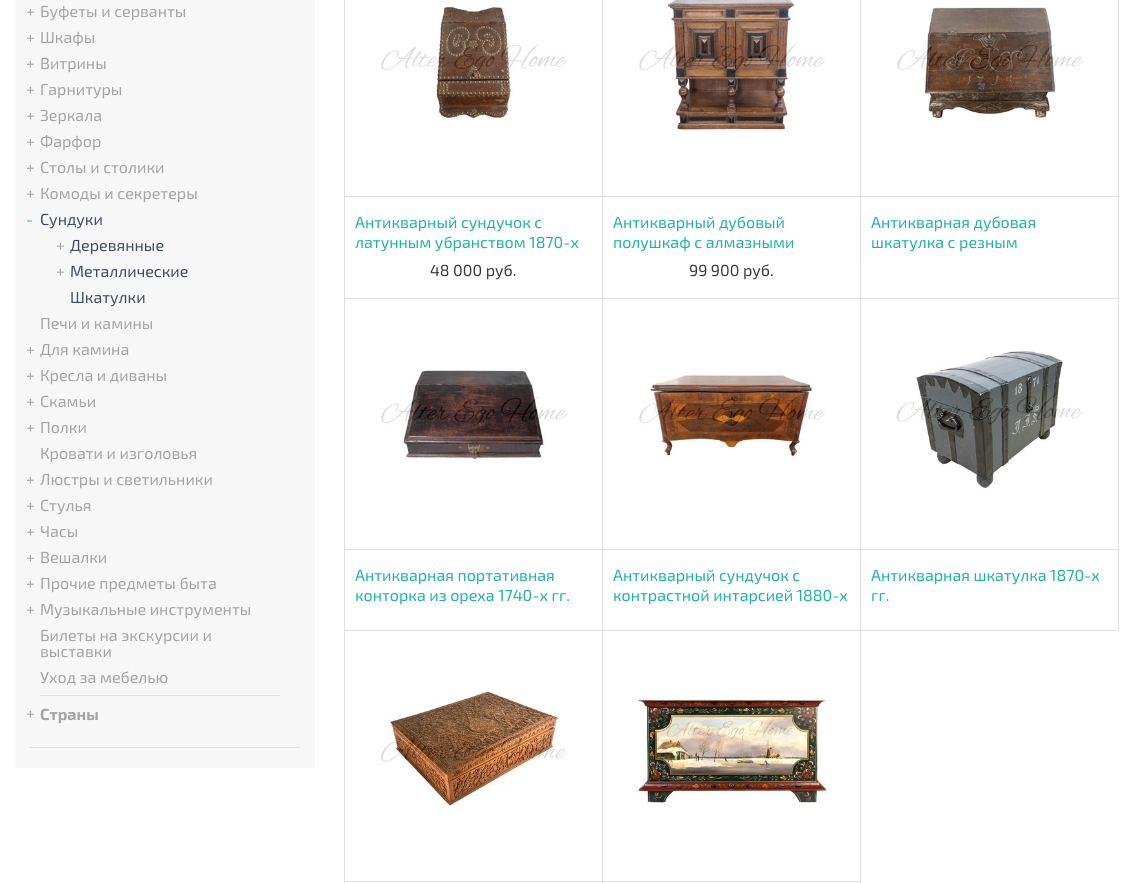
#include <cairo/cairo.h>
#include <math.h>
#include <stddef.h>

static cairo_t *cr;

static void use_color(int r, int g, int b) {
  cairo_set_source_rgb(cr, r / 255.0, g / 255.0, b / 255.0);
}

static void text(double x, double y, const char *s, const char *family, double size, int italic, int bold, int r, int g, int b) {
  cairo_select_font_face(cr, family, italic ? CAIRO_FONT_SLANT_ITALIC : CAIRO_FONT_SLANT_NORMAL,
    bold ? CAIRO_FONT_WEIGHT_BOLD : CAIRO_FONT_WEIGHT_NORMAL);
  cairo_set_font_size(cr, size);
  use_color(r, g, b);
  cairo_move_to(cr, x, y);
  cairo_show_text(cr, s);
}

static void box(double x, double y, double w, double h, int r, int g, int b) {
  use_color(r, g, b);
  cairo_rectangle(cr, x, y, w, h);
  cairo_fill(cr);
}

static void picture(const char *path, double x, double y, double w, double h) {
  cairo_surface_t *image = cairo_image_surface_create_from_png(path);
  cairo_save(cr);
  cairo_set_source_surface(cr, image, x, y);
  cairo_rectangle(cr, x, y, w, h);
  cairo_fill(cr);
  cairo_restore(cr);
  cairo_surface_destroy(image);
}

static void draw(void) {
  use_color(255, 255, 255);
  cairo_paint(cr);
  box(15, 0, 300, 768, 247, 247, 247);
  box(30, 747, 270, 1, 225, 225, 225);
  box(40, 695, 240, 1, 225, 225, 225);
  cairo_rectangle(cr, 344.5, -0.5, 258, 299);
  cairo_set_line_width(cr, 1);
  cairo_stroke(cr);
  picture("img_01.png", 381, 5, 186, 116);
  box(345, 196, 257, 1, 225, 225, 225);
  cairo_rectangle(cr, 602.5, -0.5, 258, 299);
  cairo_stroke(cr);
  picture("img_02.png", 639, 0, 186, 132);
  box(603, 196, 257, 1, 225, 225, 225);
  cairo_rectangle(cr, 860.5, -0.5, 258, 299);
  cairo_stroke(cr);
  picture("img_03.png", 897, 7, 186, 114);
  box(861, 196, 257, 1, 225, 225, 225);
  cairo_rectangle(cr, 344.5, 298.5, 258, 332);
  cairo_stroke(cr);
  picture("img_04.png", 381, 370, 186, 94);
  box(345, 549, 257, 1, 225, 225, 225);
  cairo_rectangle(cr, 602.5, 298.5, 258, 332);
  cairo_stroke(cr);
  picture("img_05.png", 639, 374, 186, 90);
  box(603, 549, 257, 1, 225, 225, 225);
  cairo_rectangle(cr, 860.5, 298.5, 258, 332);
  cairo_stroke(cr);
  picture("img_06.png", 896, 351, 187, 139);
  box(861, 549, 257, 1, 225, 225, 225);
  cairo_rectangle(cr, 344.5, 630.5, 258, 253);
  cairo_stroke(cr);
  picture("img_07.png", 381, 690, 186, 116);
  box(345, 881, 257, 1, 225, 225, 225);
  cairo_rectangle(cr, 602.5, 630.5, 258, 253);
  cairo_stroke(cr);
  picture("img_08.png", 634, 693, 196, 113);
  box(603, 881, 257, 1, 225, 225, 225);
  text(26, 17, "+", "Exo 2", 16, 0, 0, 164, 164, 164);
  text(40, 17, "Буфеты и серванты", "Exo 2", 16, 0, 0, 164, 164, 164);
  text(26, 43, "+", "Exo 2", 16, 0, 0, 164, 164, 164);
  text(40, 43, "Шкафы", "Exo 2", 16, 0, 0, 164, 164, 164);
  text(26, 69, "+", "Exo 2", 16, 0, 0, 164, 164, 164);
  text(40, 69, "Витрины", "Exo 2", 16, 0, 0, 164, 164, 164);
  text(26, 95, "+", "Exo 2", 16, 0, 0, 164, 164, 164);
  text(40, 95, "Гарнитуры", "Exo 2", 16, 0, 0, 164, 164, 164);
  text(26, 121, "+", "Exo 2", 16, 0, 0, 164, 164, 164);
  text(40, 121, "Зеркала", "Exo 2", 16, 0, 0, 164, 164, 164);
  text(26, 147, "+", "Exo 2", 16, 0, 0, 164, 164, 164);
  text(40, 147, "Фарфор", "Exo 2", 16, 0, 0, 164, 164, 164);
  text(26, 173, "+", "Exo 2", 16, 0, 0, 164, 164, 164);
  text(40, 173, "Столы и столики", "Exo 2", 16, 0, 0, 164, 164, 164);
  text(26, 199, "+", "Exo 2", 16, 0, 0, 164, 164, 164);
  text(40, 199, "Комоды и секретеры", "Exo 2", 16, 0, 0, 164, 164, 164);
  text(26, 225, "-", "Exo 2", 16, 0, 0, 32, 191, 170);
  text(40, 225, "Сундуки", "Exo 2", 16, 0, 0, 66, 76, 93);
  text(56, 251, "+", "Exo 2", 16, 0, 0, 164, 164, 164);
  text(70, 251, "Деревянные", "Exo 2", 16, 0, 0, 66, 76, 93);
  text(56, 277, "+", "Exo 2", 16, 0, 0, 164, 164, 164);
  text(70, 277, "Металлические", "Exo 2", 16, 0, 0, 66, 76, 93);
  text(70, 303, "Шкатулки", "Exo 2", 16, 0, 0, 66, 76, 93);
  text(40, 329, "Печи и камины", "Exo 2", 16, 0, 0, 164, 164, 164);
  text(26, 355, "+", "Exo 2", 16, 0, 0, 164, 164, 164);
  text(40, 355, "Для камина", "Exo 2", 16, 0, 0, 164, 164, 164);
  text(26, 381, "+", "Exo 2", 16, 0, 0, 164, 164, 164);
  text(40, 381, "Кресла и диваны", "Exo 2", 16, 0, 0, 164, 164, 164);
  text(26, 407, "+", "Exo 2", 16, 0, 0, 164, 164, 164);
  text(40, 407, "Скамьи", "Exo 2", 16, 0, 0, 164, 164, 164);
  text(26, 433, "+", "Exo 2", 16, 0, 0, 164, 164, 164);
  text(40, 433, "Полки", "Exo 2", 16, 0, 0, 164, 164, 164);
  text(40, 459, "Кровати и изголовья", "Exo 2", 16, 0, 0, 164, 164, 164);
  text(26, 485, "+", "Exo 2", 16, 0, 0, 164, 164, 164);
  text(40, 485, "Люстры и светильники", "Exo 2", 16, 0, 0, 164, 164, 164);
  text(26, 511, "+", "Exo 2", 16, 0, 0, 164, 164, 164);
  text(40, 511, "Стулья", "Exo 2", 16, 0, 0, 164, 164, 164);
  text(26, 537, "+", "Exo 2", 16, 0, 0, 164, 164, 164);
  text(40, 537, "Часы", "Exo 2", 16, 0, 0, 164, 164, 164);
  text(26, 563, "+", "Exo 2", 16, 0, 0, 164, 164, 164);
  text(40, 563, "Вешалки", "Exo 2", 16, 0, 0, 164, 164, 164);
  text(26, 589, "+", "Exo 2", 16, 0, 0, 164, 164, 164);
  text(40, 589, "Прочие предметы быта", "Exo 2", 16, 0, 0, 164, 164, 164);
  text(26, 615, "+", "Exo 2", 16, 0, 0, 164, 164, 164);
  text(40, 615, "Музыкальные инструменты", "Exo 2", 16, 0, 0, 164, 164, 164);
  text(40, 641, "Билеты на экскурсии и", "Exo 2", 16, 0, 0, 164, 164, 164);
  text(40, 657, "выставки", "Exo 2", 16, 0, 0, 164, 164, 164);
  text(40, 683, "Уход за мебелью", "Exo 2", 16, 0, 0, 164, 164, 164);
  text(26, 719, "+", "Exo 2", 16, 0, 0, 164, 164, 164);
  text(40, 720, "Страны", "Exo 2", 16, 0, 1, 164, 164, 164);
  text(355, 228, "Антикварный сундучок с", "Exo 2", 16, 0, 0, 28, 180, 161);
  text(355, 248, "латунным убранством 1870-х", "Exo 2", 16, 0, 0, 28, 180, 161);
  text(430, 276, "48 000 руб.", "Exo 2", 16, 0, 0, 55, 58, 60);
  text(613, 228, "Антикварный дубовый", "Exo 2", 16, 0, 0, 28, 180, 161);
  text(613, 248, "полушкаф с алмазными", "Exo 2", 16, 0, 0, 28, 180, 161);
  text(689, 276, "99 900 руб.", "Exo 2", 16, 0, 0, 55, 58, 60);
  text(871, 228, "Антикварная дубовая", "Exo 2", 16, 0, 0, 28, 180, 161);
  text(871, 248, "шкатулка с резным", "Exo 2", 16, 0, 0, 28, 180, 161);
  text(355, 581, "Антикварная портативная", "Exo 2", 16, 0, 0, 28, 180, 161);
  text(355, 601, "конторка из ореха 1740-х гг.", "Exo 2", 16, 0, 0, 28, 180, 161);
  text(613, 581, "Антикварный сундучок с", "Exo 2", 16, 0, 0, 28, 180, 161);
  text(613, 601, "контрастной интарсией 1880-х", "Exo 2", 16, 0, 0, 28, 180, 161);
  text(871, 581, "Антикварная шкатулка 1870-х", "Exo 2", 16, 0, 0, 28, 180, 161);
  text(871, 601, "гг.", "Exo 2", 16, 0, 0, 28, 180, 161);
}

int main(void) {
  cairo_surface_t *surface = cairo_image_surface_create(CAIRO_FORMAT_RGB24, 1134, 883);
  cr = cairo_create(surface);
  cairo_font_options_t *options = cairo_font_options_create();
  cairo_font_options_set_hint_metrics(options, CAIRO_HINT_METRICS_OFF);
  cairo_font_options_set_hint_style(options, CAIRO_HINT_STYLE_NONE);
  cairo_set_font_options(cr, options);
  cairo_set_miter_limit(cr, 4);
  draw();
  cairo_surface_write_to_png(surface, "out.png");
  cairo_font_options_destroy(options);
  cairo_destroy(cr);
  cairo_surface_destroy(surface);
  return 0;
}
